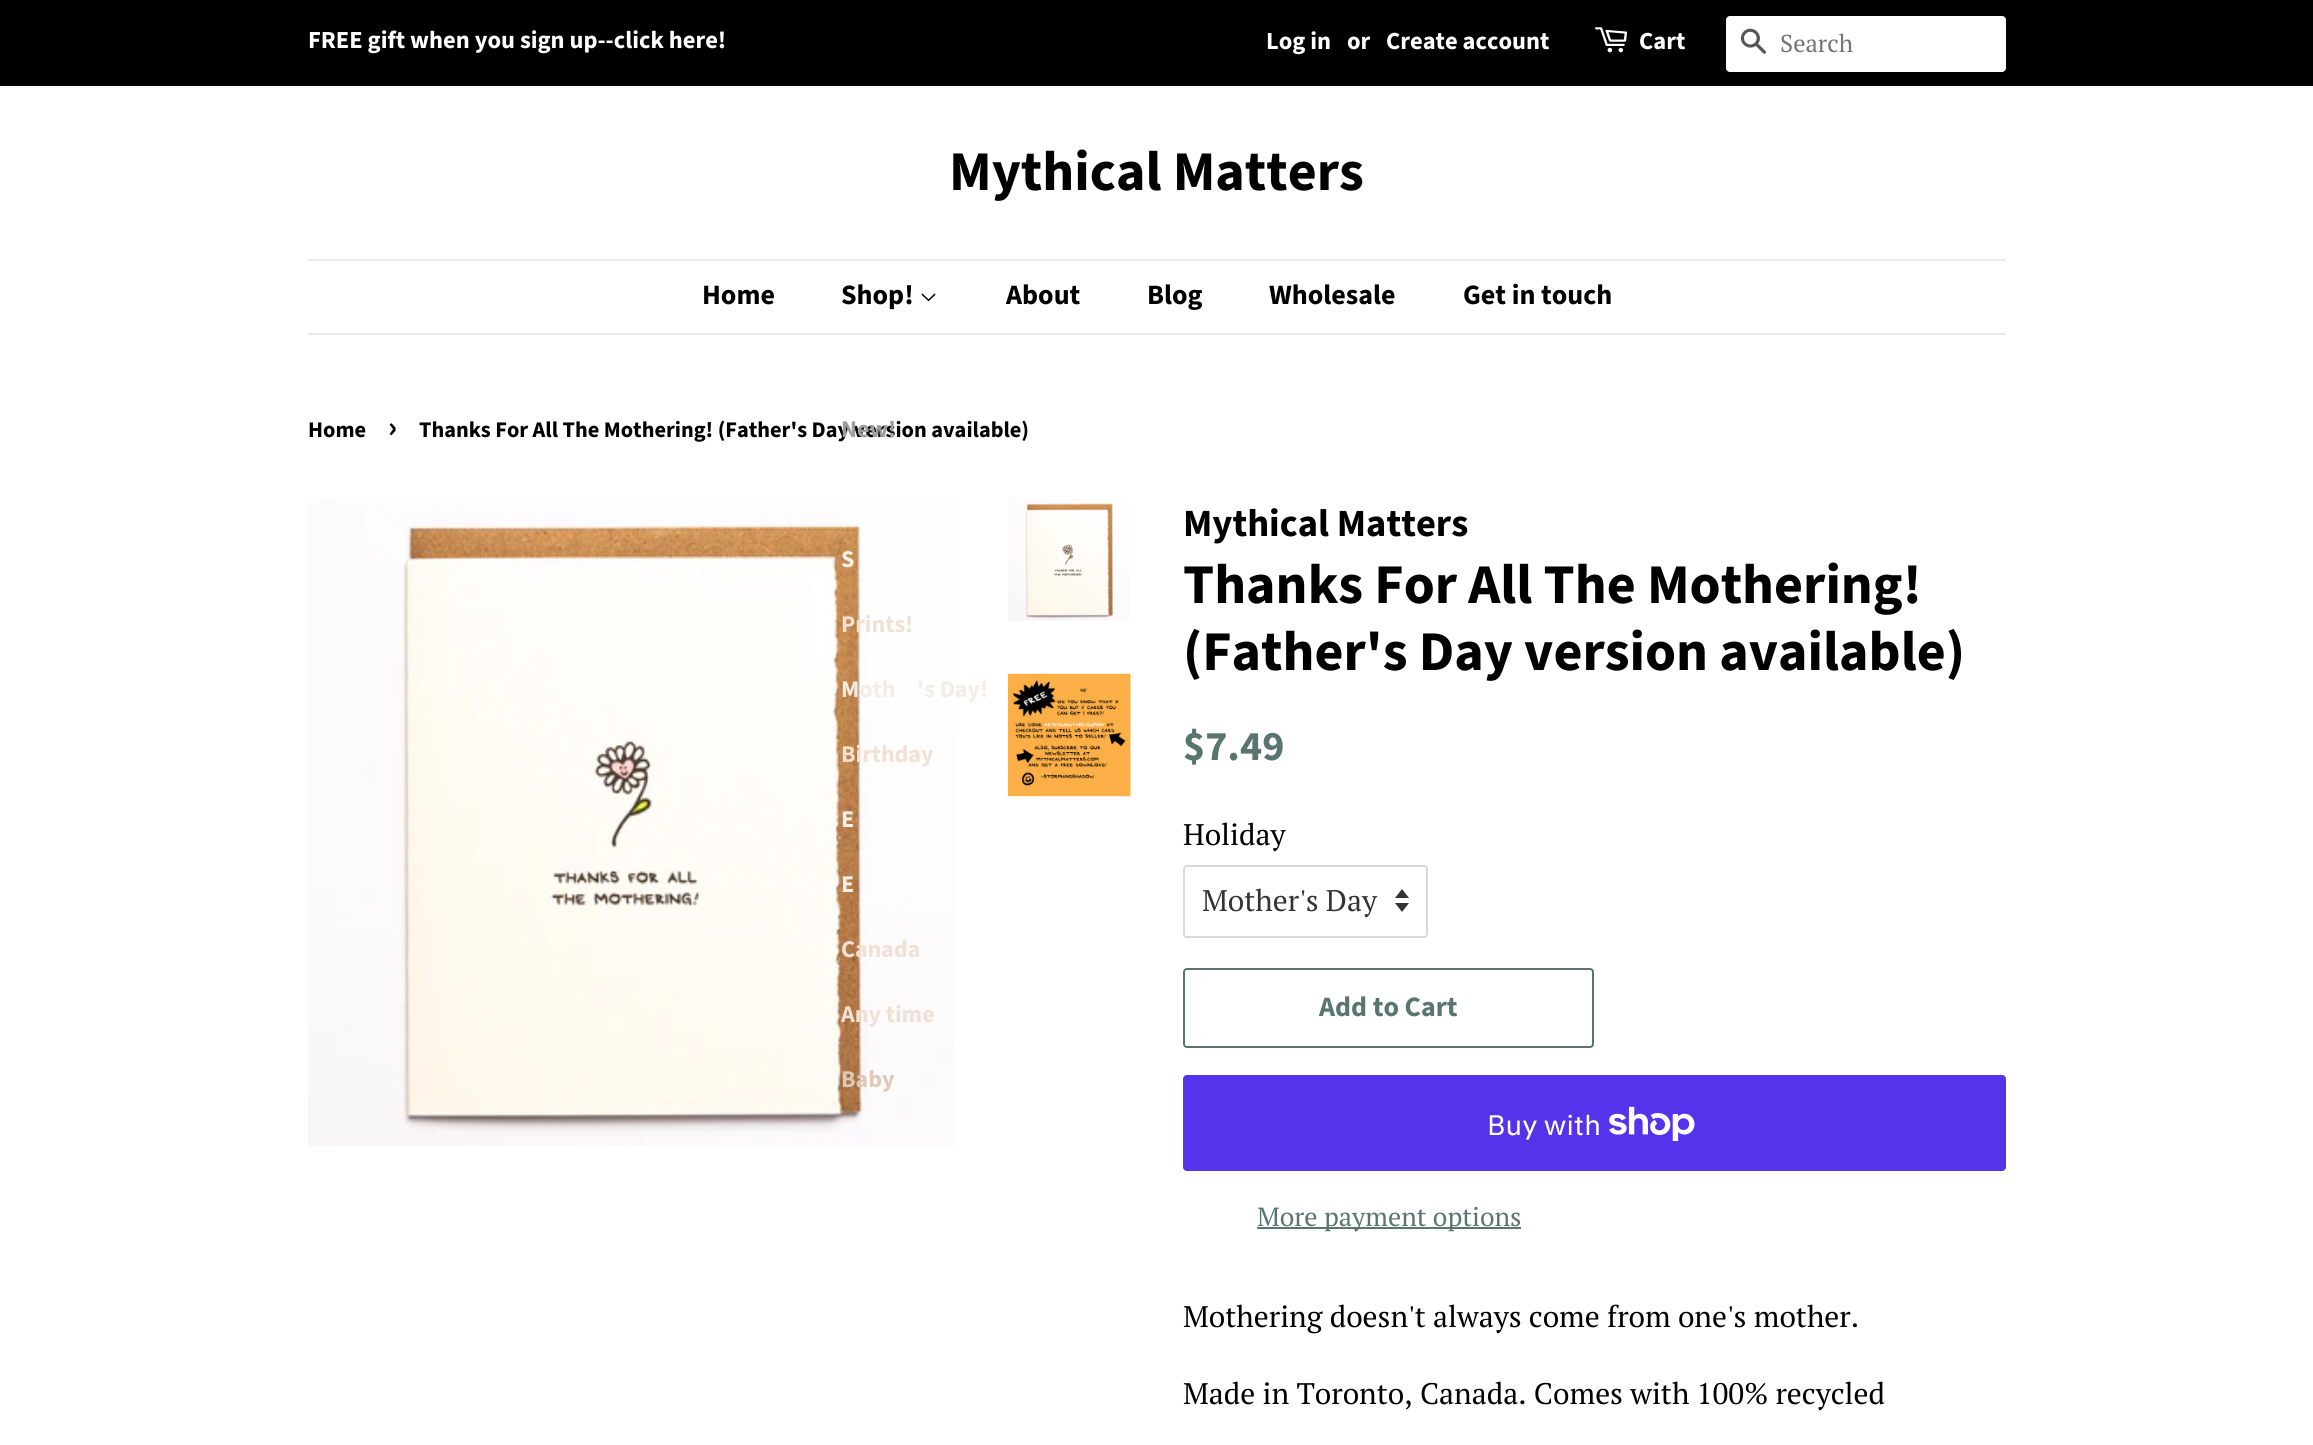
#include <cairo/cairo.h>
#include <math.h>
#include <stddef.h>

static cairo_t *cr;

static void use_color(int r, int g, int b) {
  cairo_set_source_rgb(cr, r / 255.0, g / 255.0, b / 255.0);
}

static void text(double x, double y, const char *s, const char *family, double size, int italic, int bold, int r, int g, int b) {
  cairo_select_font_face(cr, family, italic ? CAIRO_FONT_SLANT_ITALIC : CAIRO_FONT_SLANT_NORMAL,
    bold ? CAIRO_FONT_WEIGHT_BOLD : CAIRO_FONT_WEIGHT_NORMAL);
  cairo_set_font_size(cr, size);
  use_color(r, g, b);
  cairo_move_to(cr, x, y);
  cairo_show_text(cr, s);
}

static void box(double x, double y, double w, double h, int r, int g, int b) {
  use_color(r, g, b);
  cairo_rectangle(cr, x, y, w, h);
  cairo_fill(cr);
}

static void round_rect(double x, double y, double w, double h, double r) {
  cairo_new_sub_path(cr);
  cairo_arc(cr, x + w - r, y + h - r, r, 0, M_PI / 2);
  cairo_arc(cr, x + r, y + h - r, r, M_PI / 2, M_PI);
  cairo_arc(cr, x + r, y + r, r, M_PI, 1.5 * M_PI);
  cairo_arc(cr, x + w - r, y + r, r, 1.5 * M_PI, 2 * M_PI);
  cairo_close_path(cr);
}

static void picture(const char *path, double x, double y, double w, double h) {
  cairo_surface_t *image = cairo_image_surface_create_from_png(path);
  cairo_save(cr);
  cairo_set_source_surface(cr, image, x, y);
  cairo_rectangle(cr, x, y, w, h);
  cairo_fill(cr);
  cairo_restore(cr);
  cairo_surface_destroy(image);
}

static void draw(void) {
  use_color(255, 255, 255);
  cairo_paint(cr);
  box(0, 0, 2313, 86, 0, 0, 0);
  picture("img_01.png", 1595, 27, 32, 26);
  use_color(255, 255, 255);
  round_rect(1726, 16, 280, 56, 4);
  cairo_fill(cr);
  picture("img_02.png", 1740, 28, 27, 26);
  box(308, 259, 1698, 2, 235, 235, 235);
  box(308, 333, 1698, 2, 235, 235, 235);
  picture("img_03.png", 921, 293, 15, 9);
  picture("img_04.png", 308, 499, 647, 647);
  picture("img_05.png", 1008, 499, 122, 122);
  picture("img_06.png", 1008, 673, 123, 124);
  use_color(51, 51, 51);
  cairo_new_path(cr);
  cairo_move_to(cr, 1395, 903);
  cairo_line_to(cr, 1402, 912);
  cairo_line_to(cr, 1409, 903);
  cairo_close_path(cr);
  cairo_move_to(cr, 1402, 889);
  cairo_line_to(cr, 1395, 898);
  cairo_line_to(cr, 1409, 898);
  cairo_close_path(cr);
  cairo_fill(cr);
  round_rect(1184, 866, 243, 71, 3);
  use_color(217, 217, 217);
  cairo_stroke(cr);
  round_rect(1184, 969, 409, 78, 3);
  use_color(89, 117, 111);
  cairo_stroke(cr);
  use_color(84, 51, 235);
  round_rect(1183, 1075, 823, 96, 4);
  cairo_fill(cr);
  picture("img_07.png", 1609, 1106, 86, 35);
  box(1257, 1227, 264, 2, 89, 117, 111);
  text(308, 48, "FREE gift when you sign up--click here!", "Source Sans Pro", 24.5, 0, 1, 255, 255, 255);
  text(1266, 49, "Log in", "Source Sans Pro", 24.5, 0, 1, 255, 255, 255);
  text(1347, 49, "or", "Source Sans Pro", 24.5, 0, 1, 255, 255, 255);
  text(1386, 49, "Create account", "Source Sans Pro", 24.5, 0, 1, 255, 255, 255);
  text(1639, 49, "Cart", "Source Sans Pro", 24.5, 0, 1, 255, 255, 255);
  text(1780, 52, "Search", "PT Serif", 24.5, 0, 0, 117, 117, 117);
  text(949, 190, "Mythical Matters", "Source Sans Pro", 56, 0, 1, 0, 0, 0);
  text(702, 304, "Home", "Source Sans Pro", 28, 0, 1, 0, 0, 0);
  text(841, 304, "Shop!", "Source Sans Pro", 28, 0, 1, 0, 0, 0);
  text(841, 567, "S", "Source Sans Pro", 24, 0, 1, 248, 241, 235);
  text(841, 632, "Prints!", "Source Sans Pro", 24, 0, 1, 240, 225, 212);
  text(841, 697, "Moth", "Source Sans Pro", 24, 0, 1, 245, 236, 228);
  text(917, 697, "'s Day!", "Source Sans Pro", 24, 0, 1, 245, 236, 228);
  text(841, 762, "Birthday", "Source Sans Pro", 24, 0, 1, 240, 225, 212);
  text(841, 827, "E", "Source Sans Pro", 24, 0, 1, 248, 241, 235);
  text(841, 892, "E", "Source Sans Pro", 24, 0, 1, 248, 241, 235);
  text(841, 957, "Canada", "Source Sans Pro", 24, 0, 1, 240, 225, 212);
  text(841, 1022, "Any time", "Source Sans Pro", 24, 0, 1, 240, 225, 212);
  text(841, 1087, "Baby", "Source Sans Pro", 24, 0, 1, 222, 201, 184);
  text(1006, 304, "About", "Source Sans Pro", 28, 0, 1, 0, 0, 0);
  text(1147, 304, "Blog", "Source Sans Pro", 28, 0, 1, 0, 0, 0);
  text(1269, 304, "Wholesale", "Source Sans Pro", 28, 0, 1, 0, 0, 0);
  text(1463, 304, "Get in touch", "Source Sans Pro", 28, 0, 1, 0, 0, 0);
  text(308, 437, "Home", "Source Sans Pro", 22.3, 0, 1, 0, 0, 0);
  text(388, 437, "›", "Source Sans Pro", 31, 0, 1, 0, 0, 0);
  text(419, 437, "Thanks For All The Mothering! (Father's Day version available)", "Source Sans Pro", 22.3, 0, 1, 0, 0, 0);
  text(841, 437, "New!", "Source Sans Pro", 24, 0, 1, 158, 158, 158);
  text(1183, 536, "Mythical Matters", "Source Sans Pro", 38.5, 0, 1, 0, 0, 0);
  text(1183, 603, "Thanks For All The Mothering!", "Source Sans Pro", 56, 0, 1, 0, 0, 0);
  text(1183, 670, "(Father's Day version available)", "Source Sans Pro", 56, 0, 1, 0, 0, 0);
  text(1183, 760, "$7.49", "Source Sans Pro", 42, 0, 1, 89, 117, 111);
  text(1183, 845, "Holiday", "PT Serif", 29.75, 0, 0, 0, 0, 0);
  text(1202, 911, "Mother's Day", "PT Serif", 29.75, 0, 0, 51, 51, 51);
  text(1319, 1016, "Add to Cart", "Source Sans Pro", 28, 0, 1, 89, 117, 111);
  text(1487, 1135, "Buy with", "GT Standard", 28, 0, 0, 255, 255, 255);
  text(1257, 1226, "More payment options", "PT Serif", 26.25, 0, 0, 89, 117, 111);
  text(1183, 1327, "Mothering doesn't always come from one's mother.", "PT Serif", 29.75, 0, 0, 0, 0, 0);
  text(1183, 1404, "Made in Toronto, Canada. Comes with 100% recycled", "PT Serif", 29.75, 0, 0, 0, 0, 0);
}

int main(void) {
  cairo_surface_t *surface = cairo_image_surface_create(CAIRO_FORMAT_RGB24, 2313, 1445);
  cr = cairo_create(surface);
  cairo_font_options_t *options = cairo_font_options_create();
  cairo_font_options_set_hint_metrics(options, CAIRO_HINT_METRICS_OFF);
  cairo_font_options_set_hint_style(options, CAIRO_HINT_STYLE_NONE);
  cairo_set_font_options(cr, options);
  cairo_set_miter_limit(cr, 4);
  draw();
  cairo_surface_write_to_png(surface, "out.png");
  cairo_font_options_destroy(options);
  cairo_destroy(cr);
  cairo_surface_destroy(surface);
  return 0;
}
